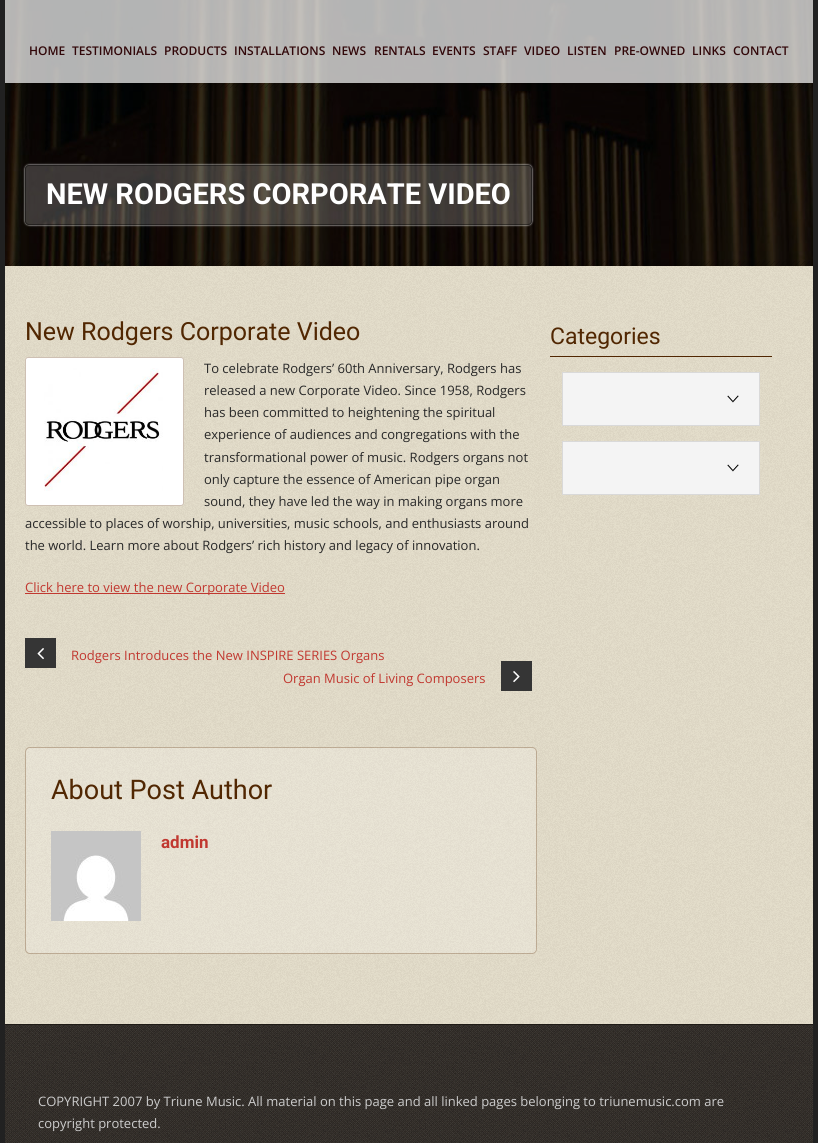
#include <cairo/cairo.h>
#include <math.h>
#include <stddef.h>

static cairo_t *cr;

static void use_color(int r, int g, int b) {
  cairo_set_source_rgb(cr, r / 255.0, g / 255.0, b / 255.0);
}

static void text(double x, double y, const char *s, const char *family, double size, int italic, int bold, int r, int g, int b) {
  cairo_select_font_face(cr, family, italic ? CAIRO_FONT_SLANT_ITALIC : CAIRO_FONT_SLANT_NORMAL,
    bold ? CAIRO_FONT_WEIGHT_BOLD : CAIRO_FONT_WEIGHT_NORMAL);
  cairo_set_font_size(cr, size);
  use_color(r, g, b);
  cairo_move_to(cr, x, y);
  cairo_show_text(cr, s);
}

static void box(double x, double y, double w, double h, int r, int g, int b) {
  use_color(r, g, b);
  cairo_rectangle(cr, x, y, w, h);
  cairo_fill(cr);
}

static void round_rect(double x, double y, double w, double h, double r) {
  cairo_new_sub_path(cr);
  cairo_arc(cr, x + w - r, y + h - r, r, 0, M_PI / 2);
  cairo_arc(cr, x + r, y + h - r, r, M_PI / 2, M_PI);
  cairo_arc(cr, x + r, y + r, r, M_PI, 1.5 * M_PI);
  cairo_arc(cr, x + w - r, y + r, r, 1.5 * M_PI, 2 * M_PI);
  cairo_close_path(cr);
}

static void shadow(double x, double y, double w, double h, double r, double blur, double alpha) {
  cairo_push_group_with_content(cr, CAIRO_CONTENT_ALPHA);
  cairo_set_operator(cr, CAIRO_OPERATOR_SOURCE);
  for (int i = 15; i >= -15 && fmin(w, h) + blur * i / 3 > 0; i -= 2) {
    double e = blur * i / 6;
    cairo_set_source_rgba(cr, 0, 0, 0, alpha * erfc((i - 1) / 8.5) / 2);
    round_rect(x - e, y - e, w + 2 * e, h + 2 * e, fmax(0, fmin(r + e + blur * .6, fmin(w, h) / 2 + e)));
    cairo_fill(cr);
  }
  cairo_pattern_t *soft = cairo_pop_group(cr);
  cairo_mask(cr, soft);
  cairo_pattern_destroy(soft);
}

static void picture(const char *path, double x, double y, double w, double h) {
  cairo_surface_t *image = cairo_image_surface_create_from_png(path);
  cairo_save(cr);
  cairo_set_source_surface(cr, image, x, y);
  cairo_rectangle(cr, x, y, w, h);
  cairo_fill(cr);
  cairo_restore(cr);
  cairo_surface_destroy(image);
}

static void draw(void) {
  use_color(33, 33, 33);
  cairo_paint(cr);
  picture("img_01.png", 5, 266, 808, 758);
  picture("img_03.png", 5, 0, 808, 266);
  cairo_set_source_rgba(cr, 1, 1, 1, 0.7);
  cairo_rectangle(cr, 5, 0, 808, 83);
  cairo_fill(cr);
  picture("img_02.png", 13, 83, 800, 5);
  cairo_save(cr);
  cairo_set_fill_rule(cr, CAIRO_FILL_RULE_EVEN_ODD);
  cairo_new_path(cr);
  cairo_move_to(cr, 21, 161);
  cairo_line_to(cr, 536, 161);
  cairo_line_to(cr, 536, 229);
  cairo_line_to(cr, 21, 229);
  cairo_close_path(cr);
  cairo_move_to(cr, 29, 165);
  cairo_line_to(cr, 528, 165);
  cairo_curve_to(cr, 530, 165, 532, 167, 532, 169);
  cairo_line_to(cr, 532, 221);
  cairo_curve_to(cr, 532, 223, 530, 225, 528, 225);
  cairo_line_to(cr, 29, 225);
  cairo_curve_to(cr, 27, 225, 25, 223, 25, 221);
  cairo_line_to(cr, 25, 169);
  cairo_curve_to(cr, 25, 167, 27, 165, 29, 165);
  cairo_close_path(cr);
  cairo_clip(cr);
  use_color(255, 255, 255);
  shadow(25, 165, 507, 60, 4, 1, 1);
  cairo_restore(cr);
  cairo_set_source_rgba(cr, 1, 1, 1, 0.2);
  round_rect(25, 165, 507, 60, 4);
  cairo_fill(cr);
  round_rect(25.5, 165.5, 506, 59, 3.5);
  cairo_set_source_rgba(cr, 0, 0, 0, 0.4);
  cairo_set_line_width(cr, 1);
  cairo_stroke(cr);
  picture("img_04.png", 5, 261, 805, 5);
  use_color(255, 255, 255);
  round_rect(25, 357, 159, 149, 3);
  cairo_fill(cr);
  round_rect(25.5, 357.5, 158, 148, 2.5);
  cairo_set_source_rgba(cr, 0.357, 0.173, 0.008, 0.3);
  cairo_stroke(cr);
  picture("img_05.png", 44, 368, 119, 123);
  box(25, 593, 260, 1, 193, 56, 48);
  box(25, 638, 31, 30, 53, 53, 53);
  picture("img_06.png", 37, 648, 7, 12);
  box(501, 661, 31, 30, 53, 53, 53);
  picture("img_07.png", 513, 671, 7, 12);
  cairo_set_source_rgba(cr, 1, 1, 1, 0.2);
  round_rect(25, 747, 512, 207, 5);
  cairo_fill(cr);
  round_rect(25.5, 747.5, 511, 206, 4.5);
  cairo_set_source_rgba(cr, 0.357, 0.173, 0.008, 0.3);
  cairo_stroke(cr);
  picture("img_08.png", 51, 831, 90, 90);
  box(550, 356, 222, 1, 81, 39, 2);
  use_color(244, 244, 244);
  cairo_rectangle(cr, 562.5, 372.5, 197, 53);
  cairo_fill_preserve(cr);
  use_color(217, 217, 217);
  cairo_stroke(cr);
  picture("img_09.png", 727, 395, 12, 8);
  use_color(244, 244, 244);
  cairo_rectangle(cr, 562.5, 441.5, 197, 53);
  cairo_fill_preserve(cr);
  use_color(217, 217, 217);
  cairo_stroke(cr);
  picture("img_09.png", 727, 464, 12, 8);
  picture("img_10.png", 5, 1025, 808, 118);
  box(5, 1024, 808, 1, 31, 27, 22);
  text(29, 55, "HOME", "Open Sans SemiBold", 12, 0, 0, 49, 7, 9);
  text(72, 55, "TESTIMONIALS", "Open Sans SemiBold", 12, 0, 0, 49, 7, 9);
  text(164, 55, "PRODUCTS", "Open Sans SemiBold", 12, 0, 0, 49, 7, 9);
  text(234, 55, "INSTALLATIONS", "Open Sans SemiBold", 12, 0, 0, 49, 7, 9);
  text(332, 55, "NEWS", "Open Sans SemiBold", 12, 0, 0, 49, 7, 9);
  text(374, 55, "RENTALS", "Open Sans SemiBold", 12, 0, 0, 49, 7, 9);
  text(432, 55, "EVENTS", "Open Sans SemiBold", 12, 0, 0, 49, 7, 9);
  text(483, 55, "STAFF", "Open Sans SemiBold", 12, 0, 0, 49, 7, 9);
  text(524, 55, "VIDEO", "Open Sans SemiBold", 12, 0, 0, 49, 7, 9);
  text(567, 55, "LISTEN", "Open Sans SemiBold", 12, 0, 0, 49, 7, 9);
  text(614, 55, "PRE-OWNED", "Open Sans SemiBold", 12, 0, 0, 49, 7, 9);
  text(692, 55, "LINKS", "Open Sans SemiBold", 12, 0, 0, 49, 7, 9);
  text(733, 55, "CONTACT", "Open Sans SemiBold", 12, 0, 0, 49, 7, 9);
  text(46, 204, "NEW RODGERS CORPORATE VIDEO", "Roboto", 29, 0, 1, 255, 255, 255);
  text(25, 340, "New Rodgers Corporate Video", "Roboto", 25, 0, 0, 81, 39, 2);
  text(204, 373, "To celebrate Rodgers’ 60th Anniversary, Rodgers has", "Open Sans", 13, 0, 0, 40, 40, 40);
  text(204, 395, "released a new Corporate Video. Since 1958, Rodgers", "Open Sans", 13, 0, 0, 40, 40, 40);
  text(204, 417, "has been committed to heightening the spiritual", "Open Sans", 13, 0, 0, 40, 40, 40);
  text(204, 439, "experience of audiences and congregations with the", "Open Sans", 13, 0, 0, 40, 40, 40);
  text(204, 462, "transformational power of music. Rodgers organs not", "Open Sans", 13, 0, 0, 40, 40, 40);
  text(204, 484, "only capture the essence of American pipe organ", "Open Sans", 13, 0, 0, 40, 40, 40);
  text(204, 506, "sound, they have led the way in making organs more", "Open Sans", 13, 0, 0, 40, 40, 40);
  text(25, 528, "accessible to places of worship, universities, music schools, and enthusiasts around", "Open Sans", 13, 0, 0, 40, 40, 40);
  text(25, 550, "the world. Learn more about Rodgers’ rich history and legacy of innovation.", "Open Sans", 13, 0, 0, 40, 40, 40);
  text(25, 592, "Click here to view the new Corporate Video", "Open Sans", 13, 0, 0, 193, 56, 48);
  text(71, 660, "Rodgers Introduces the New INSPIRE SERIES Organs", "Open Sans", 13, 0, 0, 193, 56, 48);
  text(283, 683, "Organ Music of Living Composers", "Open Sans", 13, 0, 0, 193, 56, 48);
  text(51, 799, "About Post Author", "Roboto", 27, 0, 0, 81, 39, 2);
  text(161, 848, "admin", "Roboto", 17, 0, 1, 193, 56, 48);
  text(550, 344, "Categories", "Roboto", 23, 0, 0, 81, 39, 2);
  text(38, 1106, "COPYRIGHT 2007 by Triune Music. All material on this page and all linked pages belonging to triunemusic.com are", "Open Sans", 13, 0, 0, 204, 204, 204);
  text(38, 1128, "copyright protected.", "Open Sans", 13, 0, 0, 204, 204, 204);
}

int main(void) {
  cairo_surface_t *surface = cairo_image_surface_create(CAIRO_FORMAT_RGB24, 818, 1143);
  cr = cairo_create(surface);
  cairo_font_options_t *options = cairo_font_options_create();
  cairo_font_options_set_hint_metrics(options, CAIRO_HINT_METRICS_OFF);
  cairo_font_options_set_hint_style(options, CAIRO_HINT_STYLE_NONE);
  cairo_set_font_options(cr, options);
  cairo_set_miter_limit(cr, 4);
  draw();
  cairo_surface_write_to_png(surface, "out.png");
  cairo_font_options_destroy(options);
  cairo_destroy(cr);
  cairo_surface_destroy(surface);
  return 0;
}
